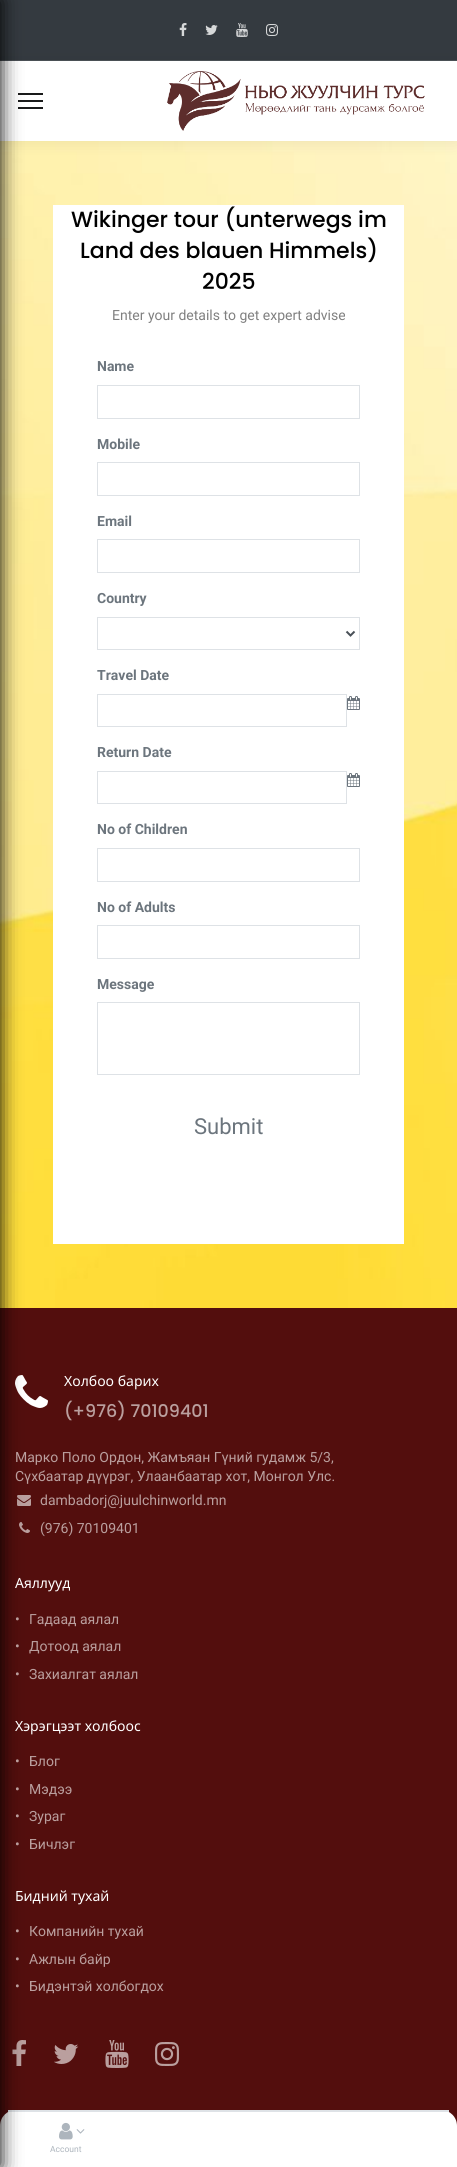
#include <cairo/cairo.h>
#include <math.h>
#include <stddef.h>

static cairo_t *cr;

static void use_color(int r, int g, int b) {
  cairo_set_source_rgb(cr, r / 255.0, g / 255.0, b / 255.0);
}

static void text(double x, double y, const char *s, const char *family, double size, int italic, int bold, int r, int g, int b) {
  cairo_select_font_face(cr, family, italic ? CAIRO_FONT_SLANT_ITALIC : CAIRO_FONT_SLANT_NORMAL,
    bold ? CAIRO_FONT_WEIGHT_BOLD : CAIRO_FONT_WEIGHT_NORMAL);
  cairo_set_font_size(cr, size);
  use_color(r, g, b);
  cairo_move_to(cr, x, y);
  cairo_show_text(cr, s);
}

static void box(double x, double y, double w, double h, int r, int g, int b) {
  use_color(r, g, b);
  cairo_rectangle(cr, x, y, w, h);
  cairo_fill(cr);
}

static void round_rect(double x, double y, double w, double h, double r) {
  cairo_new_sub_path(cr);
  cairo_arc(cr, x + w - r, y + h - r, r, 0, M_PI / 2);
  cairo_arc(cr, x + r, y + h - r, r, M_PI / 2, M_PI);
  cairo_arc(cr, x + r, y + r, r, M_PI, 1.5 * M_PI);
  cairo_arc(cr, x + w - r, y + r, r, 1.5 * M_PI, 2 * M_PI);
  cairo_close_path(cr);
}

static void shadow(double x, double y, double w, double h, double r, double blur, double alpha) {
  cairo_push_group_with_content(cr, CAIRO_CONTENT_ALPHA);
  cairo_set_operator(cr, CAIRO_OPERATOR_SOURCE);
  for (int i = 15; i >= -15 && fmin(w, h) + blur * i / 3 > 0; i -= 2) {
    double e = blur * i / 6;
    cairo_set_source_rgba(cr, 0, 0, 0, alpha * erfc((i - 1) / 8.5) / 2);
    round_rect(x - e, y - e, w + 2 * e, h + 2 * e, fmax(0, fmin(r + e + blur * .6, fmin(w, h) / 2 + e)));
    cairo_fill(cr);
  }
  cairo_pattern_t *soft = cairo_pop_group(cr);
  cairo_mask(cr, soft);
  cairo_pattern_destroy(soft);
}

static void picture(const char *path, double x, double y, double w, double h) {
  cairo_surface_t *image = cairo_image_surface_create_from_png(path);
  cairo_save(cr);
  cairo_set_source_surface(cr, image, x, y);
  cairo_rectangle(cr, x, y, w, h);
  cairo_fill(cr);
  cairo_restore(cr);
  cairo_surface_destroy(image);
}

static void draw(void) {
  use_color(255, 255, 255);
  cairo_paint(cr);
  box(0, 0, 457, 60, 52, 58, 64);
  box(0, 60, 457, 1, 76, 82, 87);
  picture("img_06.png", 0, 141, 457, 1167);
  cairo_save(cr);
  cairo_set_fill_rule(cr, CAIRO_FILL_RULE_EVEN_ODD);
  cairo_new_path(cr);
  cairo_move_to(cr, 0, 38);
  cairo_line_to(cr, 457, 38);
  cairo_line_to(cr, 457, 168);
  cairo_line_to(cr, 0, 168);
  cairo_close_path(cr);
  cairo_move_to(cr, 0, 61);
  cairo_line_to(cr, 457, 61);
  cairo_line_to(cr, 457, 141);
  cairo_line_to(cr, 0, 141);
  cairo_close_path(cr);
  cairo_clip(cr);
  use_color(0, 0, 0);
  shadow(0, 63, 457, 80, 0, 8, 0.07);
  cairo_restore(cr);
  box(18, 93, 25, 2, 25, 26, 26);
  box(18, 100, 25, 2, 25, 26, 26);
  box(18, 107, 25, 2, 25, 26, 26);
  box(0, 1308, 457, 818, 83, 14, 13);
  picture("img_08.png", 15, 1375, 33, 33);
  picture("img_09.png", 17, 1495, 14, 11);
  picture("img_10.png", 19, 1522, 11, 11);
  picture("img_11.png", 12, 2040, 14, 26);
  use_color(255, 255, 255);
  cairo_new_path(cr);
  cairo_move_to(cr, 16, 2110);
  cairo_line_to(cr, 441, 2110);
  cairo_curve_to(cr, 450, 2110, 457, 2117, 457, 2126);
  cairo_line_to(cr, 457, 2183);
  cairo_line_to(cr, 0, 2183);
  cairo_line_to(cr, 0, 2126);
  cairo_curve_to(cr, 0, 2117, 7, 2110, 16, 2110);
  cairo_close_path(cr);
  cairo_fill(cr);
  box(8, 2110, 441, 2, 222, 226, 230);
  use_color(0, 0, 0);
  shadow(-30, 0, 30, 2167, 0, 10, 1);
  picture("img_01.png", 179, 23, 8, 13);
  picture("img_02.png", 205, 25, 13, 10);
  picture("img_03.png", 236, 23, 12, 14);
  picture("img_04.png", 266, 24, 12, 12);
  picture("img_05.png", 167, 71, 258, 60);
  box(53, 205, 351, 1039, 255, 255, 255);
  cairo_rectangle(cr, 97.5, 385.5, 262, 33);
  use_color(222, 226, 230);
  cairo_set_line_width(cr, 1);
  cairo_stroke(cr);
  cairo_rectangle(cr, 97.5, 462.5, 262, 33);
  cairo_stroke(cr);
  cairo_rectangle(cr, 97.5, 539.5, 262, 33);
  cairo_stroke(cr);
  cairo_rectangle(cr, 97.5, 617.5, 262, 32);
  cairo_stroke(cr);
  cairo_new_path(cr);
  cairo_move_to(cr, 346.5, 631.5);
  cairo_line_to(cr, 350.5, 635.5);
  cairo_line_to(cr, 354.5, 631.5);
  use_color(73, 80, 87);
  cairo_set_line_width(cr, 2);
  cairo_stroke(cr);
  cairo_rectangle(cr, 97.5, 694.5, 249, 32);
  use_color(222, 226, 230);
  cairo_set_line_width(cr, 1);
  cairo_stroke(cr);
  picture("img_07.png", 347, 696, 13, 14);
  cairo_rectangle(cr, 97.5, 771.5, 249, 32);
  cairo_stroke(cr);
  picture("img_07.png", 347, 773, 13, 14);
  cairo_rectangle(cr, 97.5, 848.5, 262, 33);
  cairo_stroke(cr);
  cairo_rectangle(cr, 97.5, 925.5, 262, 33);
  cairo_stroke(cr);
  cairo_rectangle(cr, 97.5, 1002.5, 262, 72);
  cairo_stroke(cr);
  picture("img_12.png", 54, 2044, 25, 20);
  picture("img_13.png", 105, 2040, 24, 28);
  picture("img_14.png", 155, 2042, 24, 24);
  picture("img_15.png", 59, 2122, 14, 18);
  picture("img_16.png", 76, 2129, 9, 5);
  text(71, 227, "Wikinger tour (unterwegs im", "Poppins Medium", 22, 0, 0, 0, 0, 0);
  text(80, 258, "Land des blauen Himmels)", "Poppins Medium", 22, 0, 0, 0, 0, 0);
  text(202, 289, "2025", "Poppins Medium", 22, 0, 0, 0, 0, 0);
  text(112, 320, "Enter your details to get expert advise", "Roboto", 14, 0, 0, 128, 128, 128);
  text(97, 371, "Name", "Roboto", 14, 0, 1, 108, 117, 125);
  text(97, 449, "Mobile", "Roboto", 14, 0, 1, 108, 117, 125);
  text(97, 526, "Email", "Roboto", 14, 0, 1, 108, 117, 125);
  text(97, 603, "Country", "Roboto", 14, 0, 1, 108, 117, 125);
  text(97, 680, "Travel Date", "Roboto", 14, 0, 1, 108, 117, 125);
  text(97, 757, "Return Date", "Roboto", 14, 0, 1, 108, 117, 125);
  text(97, 834, "No of Children", "Roboto", 14, 0, 1, 108, 117, 125);
  text(97, 912, "No of Adults", "Roboto", 14, 0, 1, 108, 117, 125);
  text(97, 989, "Message", "Roboto", 14, 0, 1, 108, 117, 125);
  text(194, 1134, "Submit", "Roboto", 22, 0, 0, 108, 117, 125);
  text(64, 1386, "Холбоо барих", "Noto Sans", 14, 0, 0, 255, 255, 255);
  text(64, 1417, "(+976) 70109401", "Poppins Medium", 17.5, 0, 0, 186, 159, 158);
  text(15, 1462, "Марко Поло Ордон, Жамъяан Гүний гудамж 5/3,", "Roboto", 14, 0, 0, 186, 159, 158);
  text(15, 1481, "Сүхбаатар дүүрэг, Улаанбаатар хот, Монгол Улс.", "Roboto", 14, 0, 0, 186, 159, 158);
  text(40, 1505, "dambadorj@juulchinworld.mn", "Roboto", 14, 0, 0, 186, 159, 158);
  text(40, 1533, "(976) 70109401", "Roboto", 14, 0, 0, 186, 159, 158);
  text(15, 1588, "Аяллууд", "Noto Sans", 14, 0, 0, 255, 255, 255);
  text(15, 1624, "•", "Roboto", 14, 0, 0, 186, 159, 158);
  text(29, 1624, "Гадаад аялал", "Roboto", 14, 0, 0, 186, 159, 158);
  text(15, 1651, "•", "Roboto", 14, 0, 0, 186, 159, 158);
  text(29, 1651, "Дотоод аялал", "Roboto", 14, 0, 0, 186, 159, 158);
  text(15, 1679, "•", "Roboto", 14, 0, 0, 186, 159, 158);
  text(29, 1679, "Захиалгат аялал", "Roboto", 14, 0, 0, 186, 159, 158);
  text(15, 1731, "Хэрэгцээт холбоос", "Noto Sans", 14, 0, 0, 255, 255, 255);
  text(15, 1766, "•", "Roboto", 14, 0, 0, 186, 159, 158);
  text(29, 1766, "Блог", "Roboto", 14, 0, 0, 186, 159, 158);
  text(15, 1794, "•", "Roboto", 14, 0, 0, 186, 159, 158);
  text(29, 1794, "Мэдээ", "Roboto", 14, 0, 0, 186, 159, 158);
  text(15, 1821, "•", "Roboto", 14, 0, 0, 186, 159, 158);
  text(29, 1821, "Зураг", "Roboto", 14, 0, 0, 186, 159, 158);
  text(15, 1849, "•", "Roboto", 14, 0, 0, 186, 159, 158);
  text(29, 1849, "Бичлэг", "Roboto", 14, 0, 0, 186, 159, 158);
  text(15, 1901, "Бидний тухай", "Noto Sans", 14, 0, 0, 255, 255, 255);
  text(15, 1936, "•", "Roboto", 14, 0, 0, 186, 159, 158);
  text(29, 1936, "Компанийн тухай", "Roboto", 14, 0, 0, 186, 159, 158);
  text(15, 1964, "•", "Roboto", 14, 0, 0, 186, 159, 158);
  text(29, 1964, "Ажлын байр", "Roboto", 14, 0, 0, 186, 159, 158);
  text(15, 1991, "•", "Roboto", 14, 0, 0, 186, 159, 158);
  text(29, 1991, "Бидэнтэй холбогдох", "Roboto", 14, 0, 0, 186, 159, 158);
  text(50, 2152, "Account", "Roboto", 8.5, 0, 0, 173, 181, 189);
}

int main(void) {
  cairo_surface_t *surface = cairo_image_surface_create(CAIRO_FORMAT_RGB24, 457, 2167);
  cr = cairo_create(surface);
  cairo_font_options_t *options = cairo_font_options_create();
  cairo_font_options_set_hint_metrics(options, CAIRO_HINT_METRICS_OFF);
  cairo_font_options_set_hint_style(options, CAIRO_HINT_STYLE_NONE);
  cairo_set_font_options(cr, options);
  cairo_set_miter_limit(cr, 4);
  draw();
  cairo_surface_write_to_png(surface, "out.png");
  cairo_font_options_destroy(options);
  cairo_destroy(cr);
  cairo_surface_destroy(surface);
  return 0;
}
